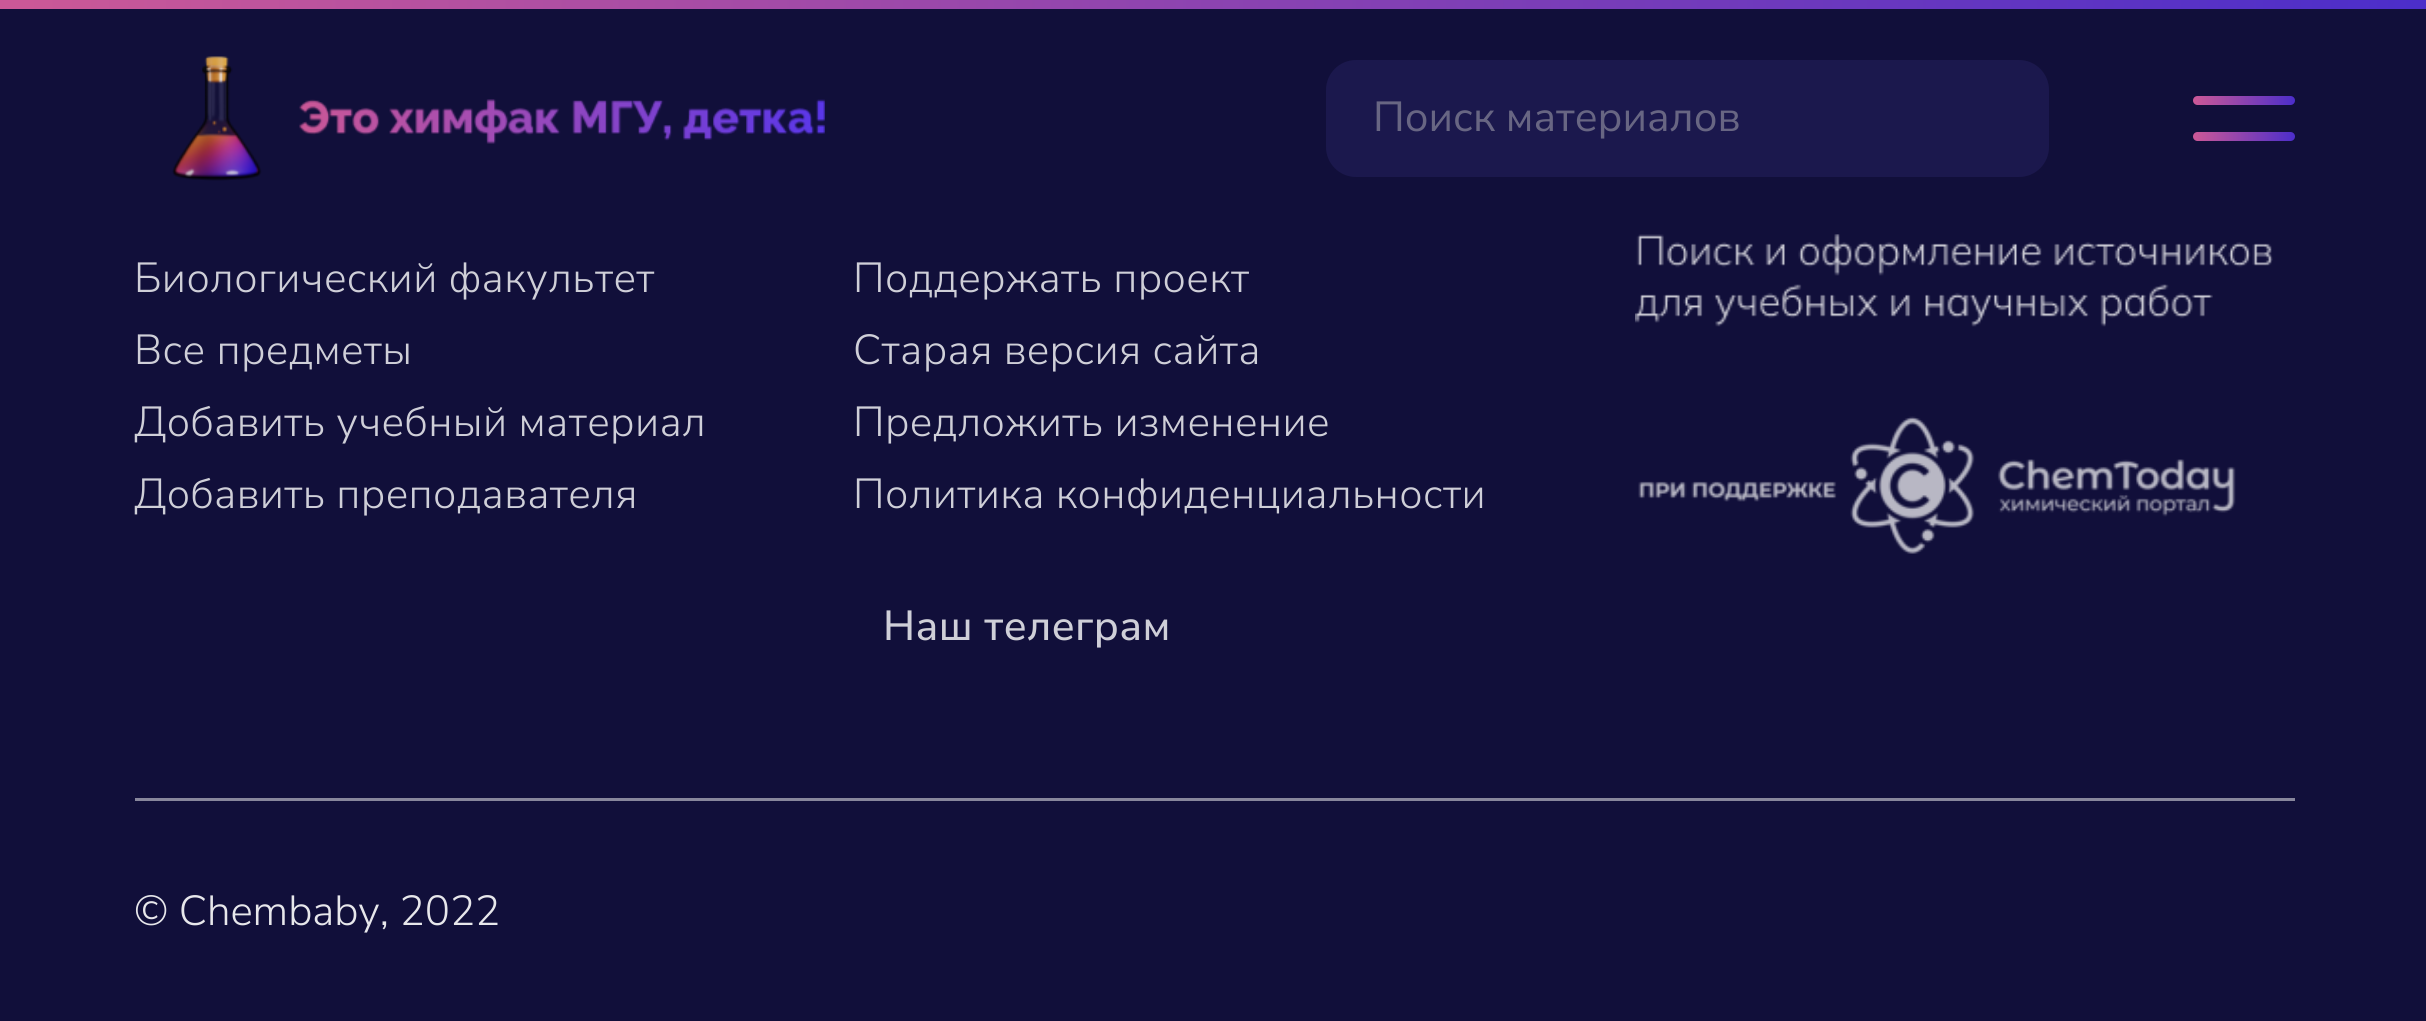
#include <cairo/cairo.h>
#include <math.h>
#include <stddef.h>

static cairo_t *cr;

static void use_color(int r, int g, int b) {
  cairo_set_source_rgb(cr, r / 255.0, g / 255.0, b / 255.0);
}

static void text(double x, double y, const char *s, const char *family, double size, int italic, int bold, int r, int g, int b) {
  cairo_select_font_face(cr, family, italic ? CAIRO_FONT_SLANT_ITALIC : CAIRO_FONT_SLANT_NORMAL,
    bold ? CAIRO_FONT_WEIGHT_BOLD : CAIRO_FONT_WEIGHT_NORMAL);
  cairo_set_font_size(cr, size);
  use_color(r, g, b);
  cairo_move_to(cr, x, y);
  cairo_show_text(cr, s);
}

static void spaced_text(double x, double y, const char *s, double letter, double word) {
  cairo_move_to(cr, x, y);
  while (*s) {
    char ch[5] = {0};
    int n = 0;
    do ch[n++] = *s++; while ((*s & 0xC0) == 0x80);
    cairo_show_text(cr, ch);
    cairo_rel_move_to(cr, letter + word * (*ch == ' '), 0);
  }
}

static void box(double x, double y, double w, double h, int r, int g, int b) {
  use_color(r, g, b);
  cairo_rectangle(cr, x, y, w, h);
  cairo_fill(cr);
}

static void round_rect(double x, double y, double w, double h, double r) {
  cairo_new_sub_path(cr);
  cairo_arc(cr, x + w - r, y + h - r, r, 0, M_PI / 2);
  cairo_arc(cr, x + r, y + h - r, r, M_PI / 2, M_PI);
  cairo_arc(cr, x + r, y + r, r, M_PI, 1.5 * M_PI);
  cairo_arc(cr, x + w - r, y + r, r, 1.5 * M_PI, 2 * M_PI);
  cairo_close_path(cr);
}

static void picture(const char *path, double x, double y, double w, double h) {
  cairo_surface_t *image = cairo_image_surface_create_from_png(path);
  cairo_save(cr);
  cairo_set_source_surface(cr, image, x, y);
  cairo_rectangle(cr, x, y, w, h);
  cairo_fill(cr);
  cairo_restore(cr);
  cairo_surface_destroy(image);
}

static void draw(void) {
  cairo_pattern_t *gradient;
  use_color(17, 15, 58);
  cairo_paint(cr);
  gradient = cairo_pattern_create_linear(0, 0.3, 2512, 9);
  cairo_pattern_add_color_stop_rgba(gradient, 0.01, 0.796, 0.345, 0.592, 1);
  cairo_pattern_add_color_stop_rgba(gradient, 1, 0.278, 0.173, 0.8, 1);
  cairo_set_source(cr, gradient);
  cairo_pattern_destroy(gradient);
  cairo_rectangle(cr, 0, 0, 2426, 9);
  cairo_fill(cr);
  picture("img_01.png", 172, 56, 653, 125);
  use_color(27, 24, 77);
  round_rect(1326, 60, 723, 117, 30);
  cairo_fill(cr);
  gradient = cairo_pattern_create_linear(2193, 100, 2299, 101);
  cairo_pattern_add_color_stop_rgba(gradient, 0.01, 0.796, 0.345, 0.592, 1);
  cairo_pattern_add_color_stop_rgba(gradient, 1, 0.278, 0.173, 0.8, 1);
  cairo_set_source(cr, gradient);
  cairo_pattern_destroy(gradient);
  round_rect(2193, 96, 102, 9, 4.5);
  cairo_fill(cr);
  gradient = cairo_pattern_create_linear(2193, 136, 2299, 137);
  cairo_pattern_add_color_stop_rgba(gradient, 0.01, 0.796, 0.345, 0.592, 1);
  cairo_pattern_add_color_stop_rgba(gradient, 1, 0.278, 0.173, 0.8, 1);
  cairo_set_source(cr, gradient);
  cairo_pattern_destroy(gradient);
  round_rect(2193, 132, 102, 9, 4.5);
  cairo_fill(cr);
  picture("img_02.png", 1635, 234, 638, 93);
  picture("img_03.png", 1638, 416, 598, 138);
  box(135, 798, 2160, 3, 136, 135, 156);
  text(1373, 131, "Поиск материалов", "Nunito Sans", 42, 0, 0, 104, 102, 131);
  cairo_select_font_face(cr, "Nunito Sans Light", CAIRO_FONT_SLANT_NORMAL, CAIRO_FONT_WEIGHT_NORMAL);
  use_color(207, 207, 216);
  spaced_text(134, 292, "Биологический факультет", 0.4, 0);
  spaced_text(134, 364, "Все предметы", 0.4, 0);
  spaced_text(134, 436, "Добавить учебный материал", 0.4, 0);
  spaced_text(134, 508, "Добавить преподавателя", 0.4, 0);
  spaced_text(853, 292, "Поддержать проект", 0.4, 0);
  spaced_text(853, 364, "Старая версия сайта", 0.4, 0);
  spaced_text(853, 436, "Предложить изменение", 0.4, 0);
  spaced_text(853, 508, "Политика конфиденциальности", 0.4, 0);
  cairo_select_font_face(cr, "Nunito Sans Medium", CAIRO_FONT_SLANT_NORMAL, CAIRO_FONT_WEIGHT_NORMAL);
  spaced_text(883, 640, "Наш телеграм", 0.4, 0);
  text(134, 925, "© Chembaby, 2022", "Nunito Sans Light", 42, 0, 0, 231, 231, 235);
}

int main(void) {
  cairo_surface_t *surface = cairo_image_surface_create(CAIRO_FORMAT_RGB24, 2426, 1021);
  cr = cairo_create(surface);
  cairo_font_options_t *options = cairo_font_options_create();
  cairo_font_options_set_hint_metrics(options, CAIRO_HINT_METRICS_OFF);
  cairo_font_options_set_hint_style(options, CAIRO_HINT_STYLE_NONE);
  cairo_set_font_options(cr, options);
  cairo_set_miter_limit(cr, 4);
  draw();
  cairo_surface_write_to_png(surface, "out.png");
  cairo_font_options_destroy(options);
  cairo_destroy(cr);
  cairo_surface_destroy(surface);
  return 0;
}
